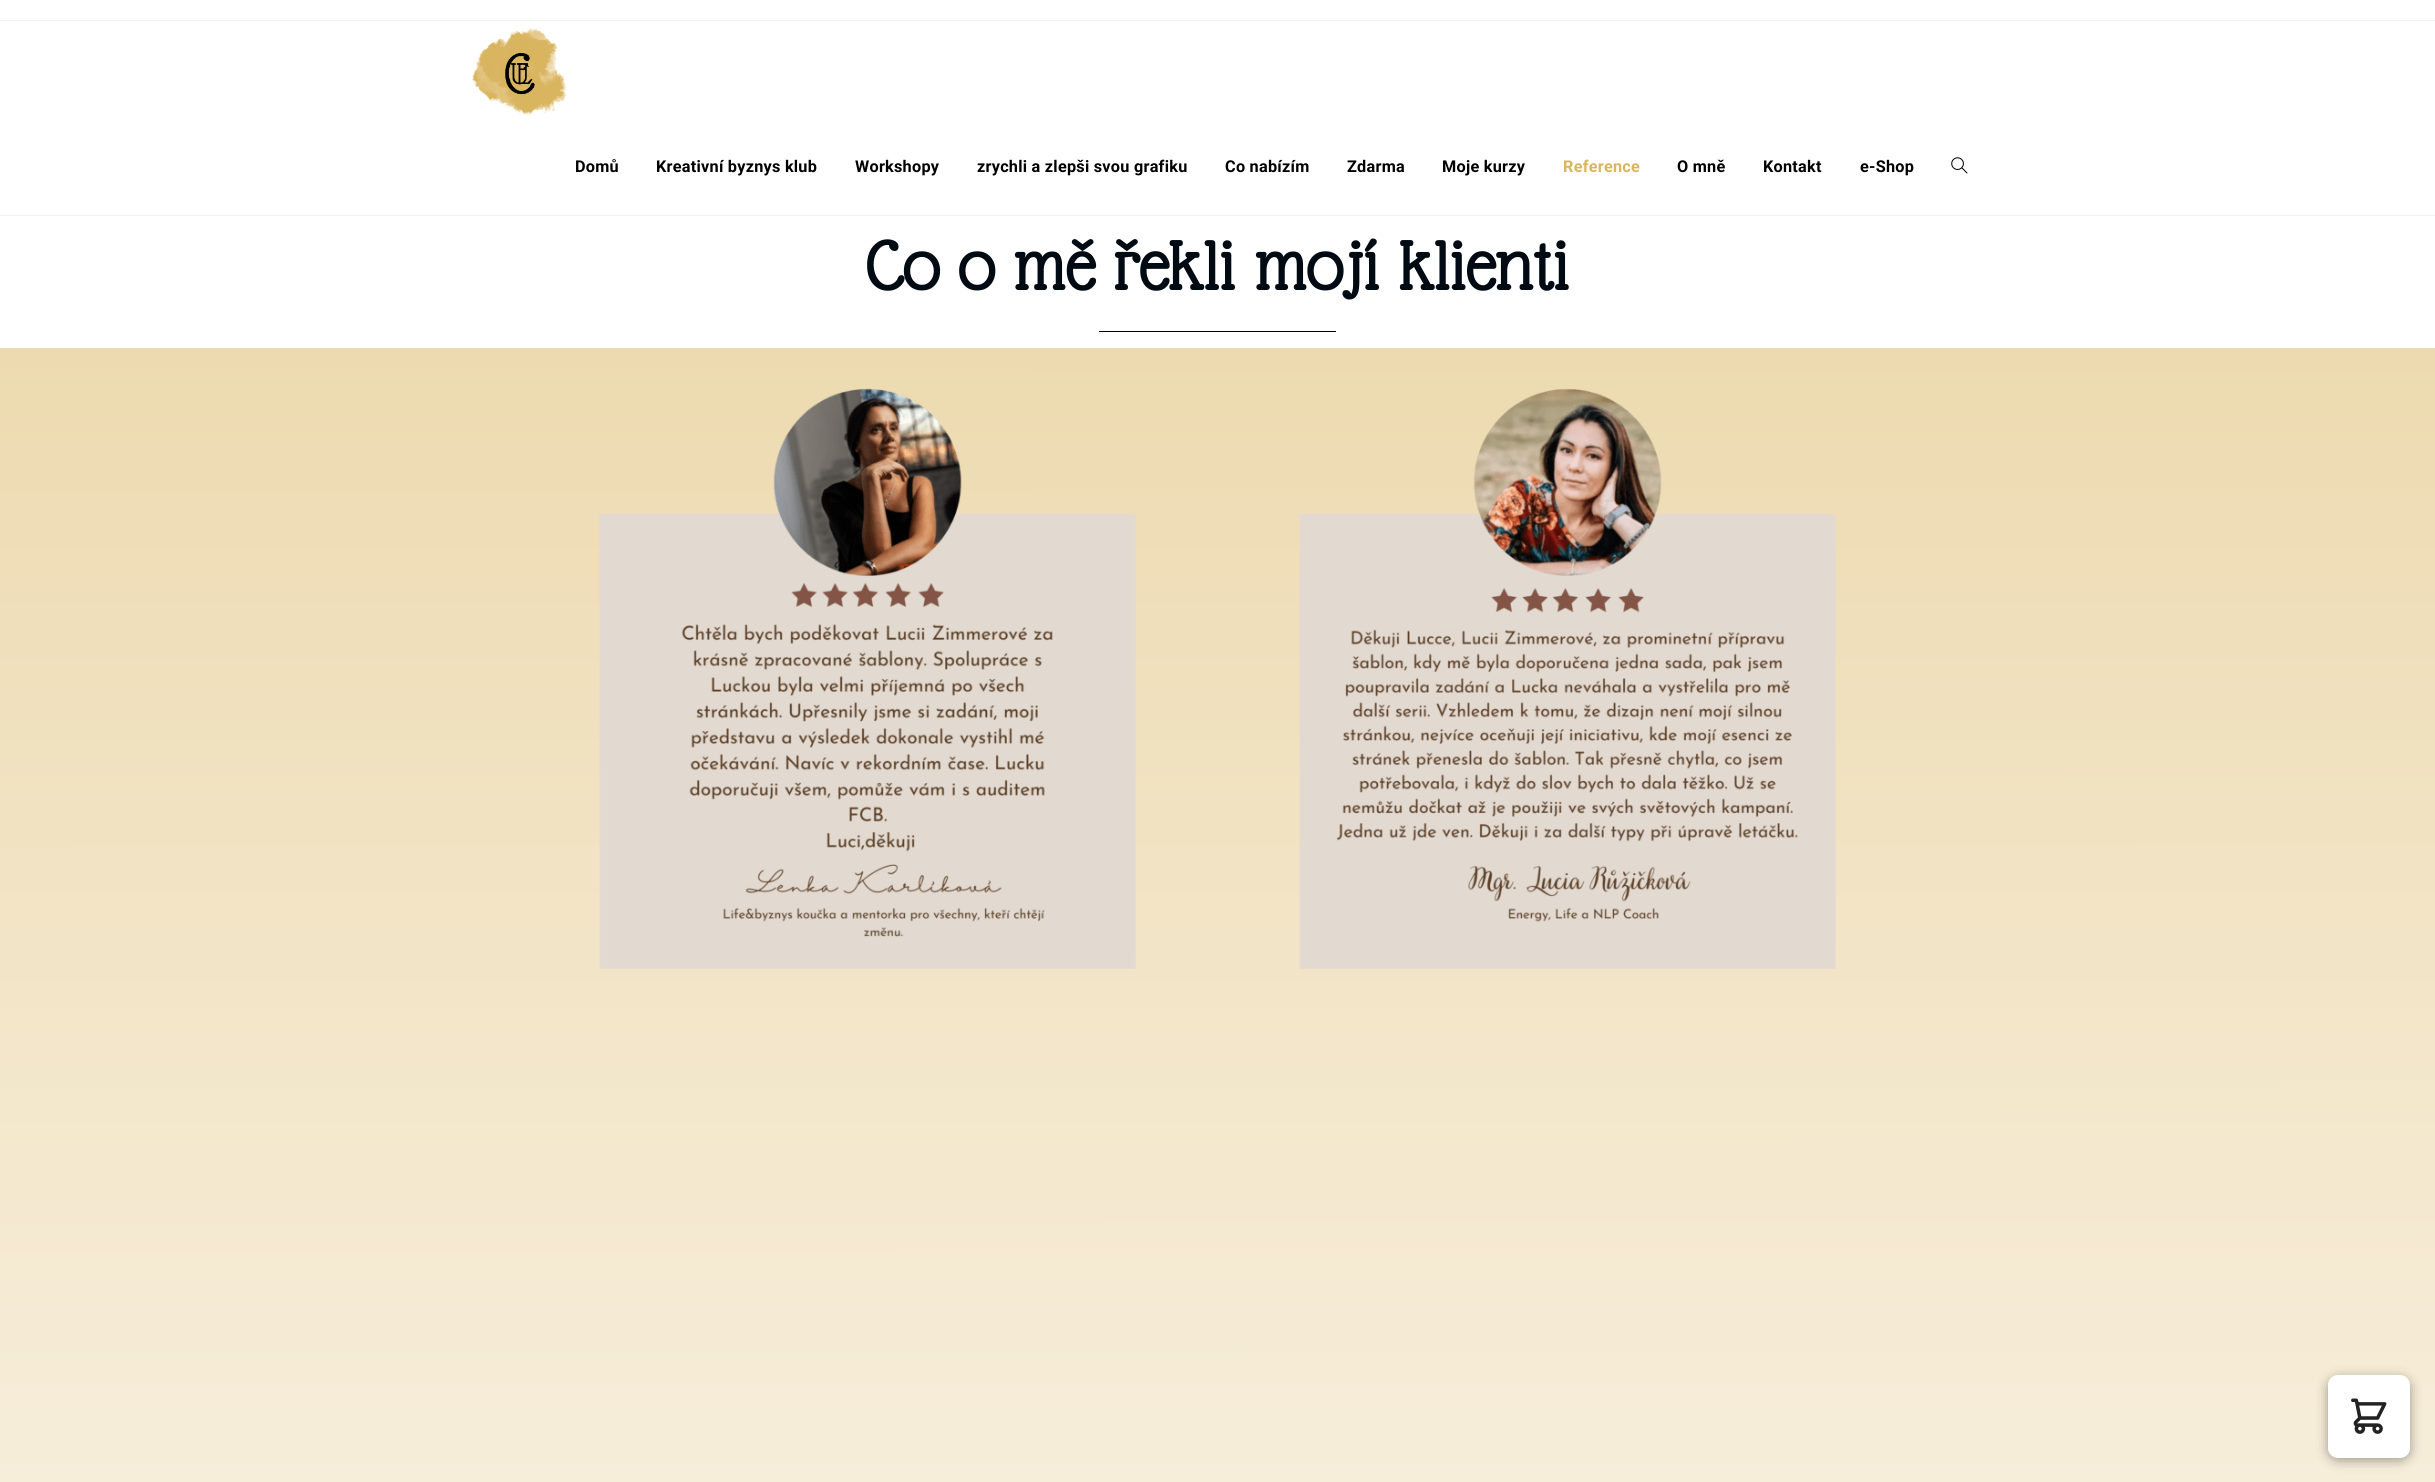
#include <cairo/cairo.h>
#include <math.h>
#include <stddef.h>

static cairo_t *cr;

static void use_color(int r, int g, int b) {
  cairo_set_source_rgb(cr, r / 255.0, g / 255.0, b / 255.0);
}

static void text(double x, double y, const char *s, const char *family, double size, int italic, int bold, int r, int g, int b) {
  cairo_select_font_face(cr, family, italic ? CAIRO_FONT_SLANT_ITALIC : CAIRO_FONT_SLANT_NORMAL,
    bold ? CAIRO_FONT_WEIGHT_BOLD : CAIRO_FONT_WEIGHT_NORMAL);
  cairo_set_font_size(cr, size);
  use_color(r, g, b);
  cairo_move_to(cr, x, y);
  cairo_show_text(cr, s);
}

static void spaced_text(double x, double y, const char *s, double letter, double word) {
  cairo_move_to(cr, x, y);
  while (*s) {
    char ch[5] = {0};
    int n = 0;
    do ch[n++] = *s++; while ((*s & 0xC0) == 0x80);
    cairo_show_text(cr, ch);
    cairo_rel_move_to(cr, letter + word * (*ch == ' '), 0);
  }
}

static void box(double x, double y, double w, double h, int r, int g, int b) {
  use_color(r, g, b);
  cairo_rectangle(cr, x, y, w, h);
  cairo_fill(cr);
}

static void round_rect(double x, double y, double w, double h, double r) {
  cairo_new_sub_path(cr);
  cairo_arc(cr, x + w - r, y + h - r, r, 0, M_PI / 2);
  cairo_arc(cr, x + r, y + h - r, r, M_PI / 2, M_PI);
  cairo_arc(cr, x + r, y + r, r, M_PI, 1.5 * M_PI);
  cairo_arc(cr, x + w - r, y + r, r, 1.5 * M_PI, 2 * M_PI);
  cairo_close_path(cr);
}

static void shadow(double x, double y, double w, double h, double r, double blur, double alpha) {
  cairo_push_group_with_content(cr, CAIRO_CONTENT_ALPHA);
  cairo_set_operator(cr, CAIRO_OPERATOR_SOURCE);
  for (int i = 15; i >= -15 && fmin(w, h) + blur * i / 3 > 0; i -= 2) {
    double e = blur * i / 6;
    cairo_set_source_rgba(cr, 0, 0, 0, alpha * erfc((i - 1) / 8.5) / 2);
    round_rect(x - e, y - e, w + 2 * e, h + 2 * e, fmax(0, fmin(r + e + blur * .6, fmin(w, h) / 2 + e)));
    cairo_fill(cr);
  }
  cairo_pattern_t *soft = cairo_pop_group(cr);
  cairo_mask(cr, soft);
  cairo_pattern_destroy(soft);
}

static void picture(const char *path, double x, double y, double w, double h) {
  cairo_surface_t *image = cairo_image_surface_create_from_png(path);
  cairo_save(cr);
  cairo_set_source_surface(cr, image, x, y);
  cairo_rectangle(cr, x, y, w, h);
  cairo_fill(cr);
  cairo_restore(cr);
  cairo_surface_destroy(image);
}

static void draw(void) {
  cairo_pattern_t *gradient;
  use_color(255, 255, 255);
  cairo_paint(cr);
  box(0, 20, 2435, 1, 241, 241, 241);
  box(0, 215, 2435, 1, 241, 241, 241);
  picture("img_01.png", 472, 28, 94, 88);
  picture("img_02.png", 1951, 157, 17, 17);
  box(1099, 331, 237, 1, 0, 0, 0);
  gradient = cairo_pattern_create_linear(1217, 347, 1218, 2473);
  cairo_pattern_add_color_stop_rgba(gradient, 0, 0.929, 0.855, 0.69, 1);
  cairo_pattern_add_color_stop_rgba(gradient, 1, 1, 1, 1, 1);
  cairo_set_source(cr, gradient);
  cairo_pattern_destroy(gradient);
  cairo_rectangle(cr, 0, 348, 2435, 1134);
  cairo_fill(cr);
  picture("img_03.png", 599, 388, 537, 581);
  picture("img_04.png", 1299, 388, 537, 581);
  use_color(0, 0, 0);
  shadow(2328, 1378, 82, 82, 10, 6, 0.37);
  use_color(255, 255, 255);
  round_rect(2328, 1375, 82, 83, 10);
  cairo_fill(cr);
  picture("img_05.png", 2351, 1398, 36, 36);
  cairo_select_font_face(cr, "Roboto", CAIRO_FONT_SLANT_NORMAL, CAIRO_FONT_WEIGHT_BOLD);
  cairo_set_font_size(cr, 16.25);
  use_color(0, 0, 0);
  spaced_text(575, 172, "Domů", 0.25, 0);
  spaced_text(656, 172, "Kreativní byznys klub", 0.25, 0);
  spaced_text(855, 172, "Workshopy", 0.25, 0);
  spaced_text(977, 172, "zrychli a zlepši svou grafiku", 0.25, 0);
  spaced_text(1225, 172, "Co nabízím", 0.25, 0);
  spaced_text(1347, 172, "Zdarma", 0.25, 0);
  spaced_text(1442, 172, "Moje kurzy", 0.25, 0);
  use_color(218, 181, 96);
  spaced_text(1563, 172, "Reference", 0.25, 0);
  use_color(0, 0, 0);
  spaced_text(1677, 172, "O mně", 0.25, 0);
  spaced_text(1763, 172, "Kontakt", 0.25, 0);
  spaced_text(1860, 172, "e-Shop", 0.25, 0);
  text(866, 290, "Co o mě řekli mojí klienti", "Glass Antiqua", 75, 0, 1, 0, 10, 19);
}

int main(void) {
  cairo_surface_t *surface = cairo_image_surface_create(CAIRO_FORMAT_RGB24, 2435, 1482);
  cr = cairo_create(surface);
  cairo_font_options_t *options = cairo_font_options_create();
  cairo_font_options_set_hint_metrics(options, CAIRO_HINT_METRICS_OFF);
  cairo_font_options_set_hint_style(options, CAIRO_HINT_STYLE_NONE);
  cairo_set_font_options(cr, options);
  cairo_set_miter_limit(cr, 4);
  draw();
  cairo_surface_write_to_png(surface, "out.png");
  cairo_font_options_destroy(options);
  cairo_destroy(cr);
  cairo_surface_destroy(surface);
  return 0;
}
